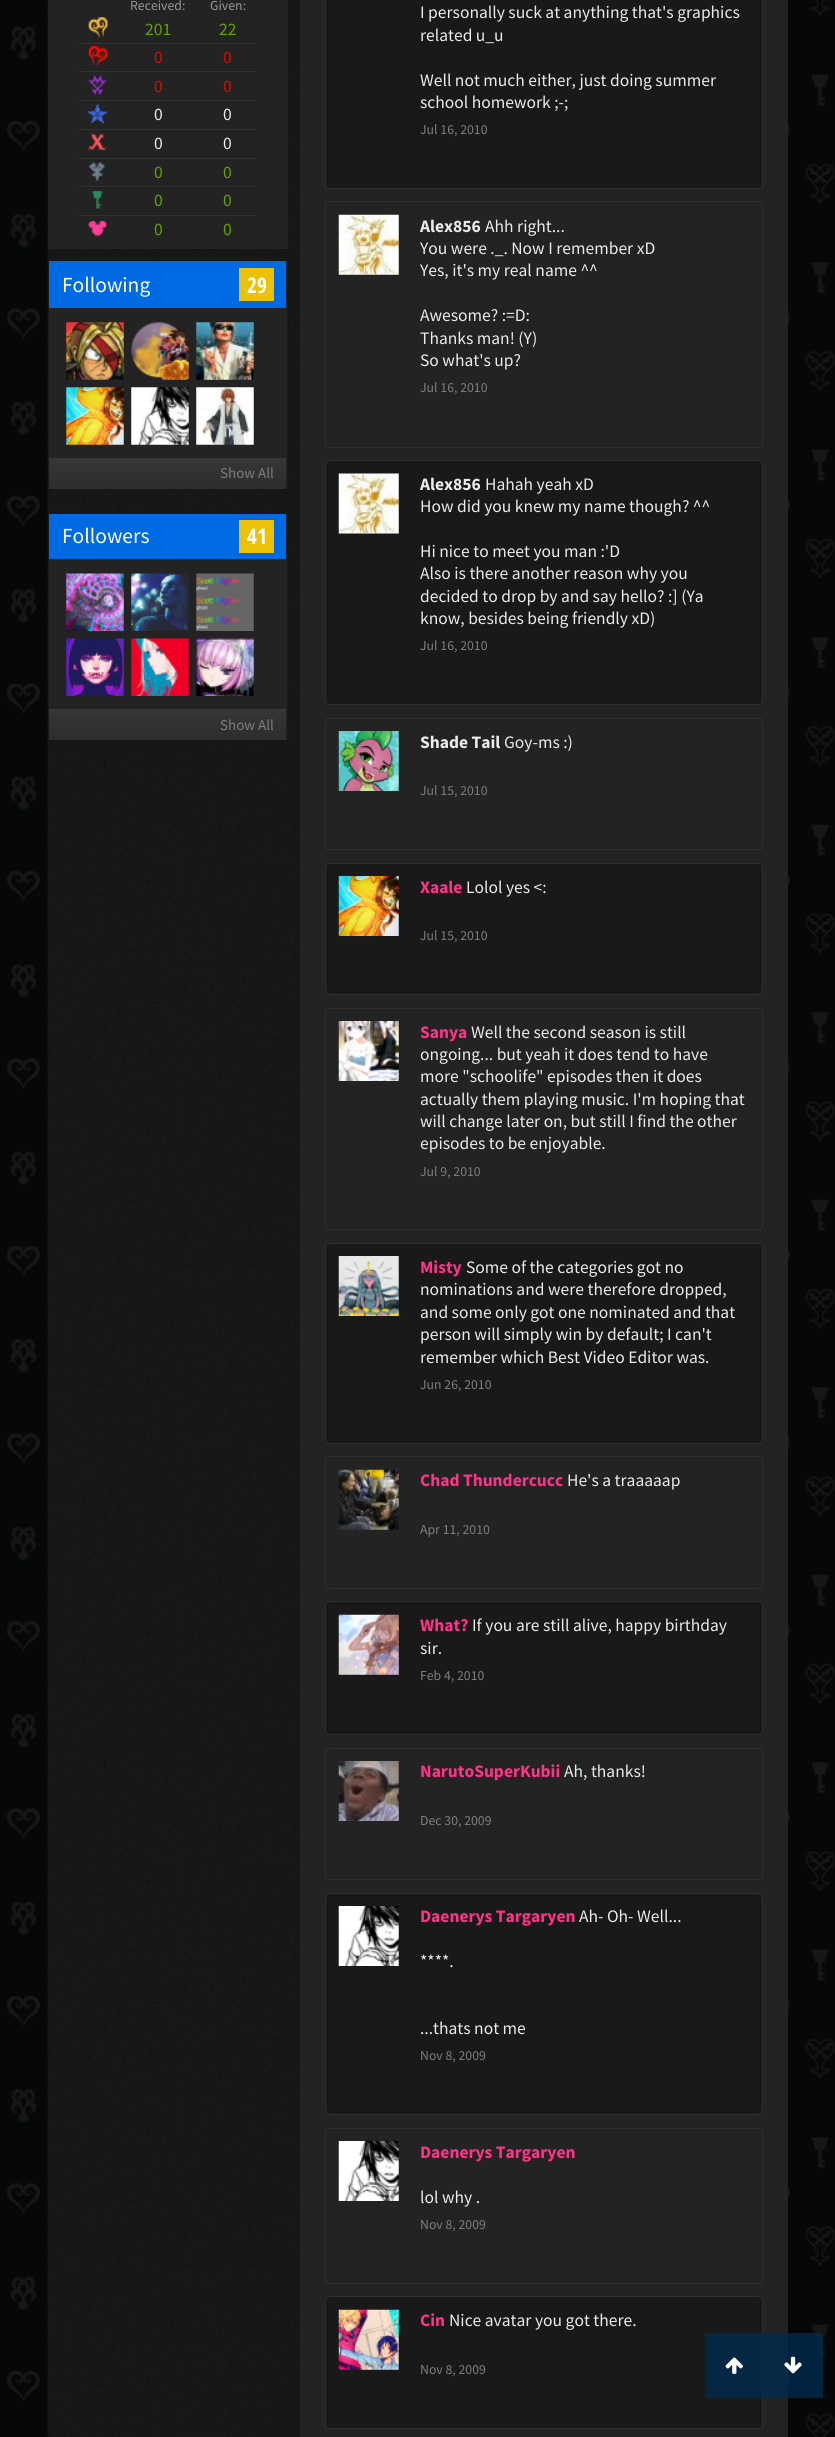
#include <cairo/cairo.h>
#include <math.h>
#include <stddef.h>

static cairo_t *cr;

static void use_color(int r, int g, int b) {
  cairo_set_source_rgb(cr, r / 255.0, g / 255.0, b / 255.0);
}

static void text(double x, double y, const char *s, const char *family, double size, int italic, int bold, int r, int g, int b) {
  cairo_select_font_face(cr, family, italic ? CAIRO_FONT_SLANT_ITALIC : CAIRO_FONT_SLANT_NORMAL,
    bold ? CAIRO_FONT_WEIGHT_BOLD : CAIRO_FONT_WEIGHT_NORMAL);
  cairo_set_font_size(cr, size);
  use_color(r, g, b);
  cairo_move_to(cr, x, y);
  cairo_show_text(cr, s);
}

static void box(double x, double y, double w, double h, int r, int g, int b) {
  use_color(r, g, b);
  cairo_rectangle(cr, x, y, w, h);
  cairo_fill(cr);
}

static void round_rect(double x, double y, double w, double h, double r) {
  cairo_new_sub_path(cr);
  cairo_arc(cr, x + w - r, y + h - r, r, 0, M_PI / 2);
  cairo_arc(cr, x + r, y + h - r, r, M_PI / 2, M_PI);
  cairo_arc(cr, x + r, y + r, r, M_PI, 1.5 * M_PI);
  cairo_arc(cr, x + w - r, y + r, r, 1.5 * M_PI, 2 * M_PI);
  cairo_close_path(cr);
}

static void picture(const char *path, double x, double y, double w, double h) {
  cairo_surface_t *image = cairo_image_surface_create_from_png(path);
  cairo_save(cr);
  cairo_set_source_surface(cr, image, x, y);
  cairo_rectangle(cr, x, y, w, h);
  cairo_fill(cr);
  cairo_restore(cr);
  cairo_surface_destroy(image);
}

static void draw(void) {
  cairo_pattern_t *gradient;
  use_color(255, 255, 255);
  cairo_paint(cr);
  picture("img_01.png", 0, 0, 835, 2437);
  picture("img_02.png", 47, 0, 253, 2437);
  box(48, 0, 240, 249, 35, 35, 35);
  picture("img_03.png", 88, 17, 20, 21);
  box(79, 43, 177, 1, 51, 50, 50);
  picture("img_04.png", 88, 46, 20, 20);
  box(79, 71, 177, 1, 51, 50, 50);
  picture("img_05.png", 87, 74, 21, 21);
  box(79, 100, 177, 1, 51, 50, 50);
  picture("img_06.png", 87, 103, 21, 21);
  box(79, 129, 177, 1, 51, 50, 50);
  picture("img_07.png", 87, 133, 20, 18);
  box(79, 158, 177, 1, 51, 50, 50);
  picture("img_08.png", 88, 162, 18, 19);
  box(79, 186, 177, 1, 51, 50, 50);
  picture("img_09.png", 92, 190, 11, 19);
  box(79, 215, 177, 1, 51, 50, 50);
  picture("img_10.png", 88, 220, 19, 17);
  use_color(35, 35, 35);
  cairo_rectangle(cr, 48.5, 261.5, 239, 227);
  cairo_fill_preserve(cr);
  use_color(26, 26, 26);
  cairo_set_line_width(cr, 1);
  cairo_stroke(cr);
  box(49, 261, 237, 47, 0, 106, 227);
  box(239, 268, 35, 33, 237, 193, 8);
  picture("img_11.png", 66, 322, 58, 58);
  picture("img_12.png", 131, 322, 58, 58);
  picture("img_13.png", 196, 322, 58, 58);
  picture("img_14.png", 66, 387, 58, 58);
  picture("img_15.png", 131, 387, 58, 58);
  picture("img_16.png", 196, 387, 58, 58);
  gradient = cairo_pattern_create_linear(168, 459, 168, 489);
  cairo_pattern_add_color_stop_rgba(gradient, 0, 0.212, 0.212, 0.212, 1);
  cairo_pattern_add_color_stop_rgba(gradient, 1, 0.176, 0.176, 0.176, 1);
  cairo_set_source(cr, gradient);
  cairo_pattern_destroy(gradient);
  cairo_rectangle(cr, 49, 459, 237, 30);
  cairo_fill(cr);
  box(49, 458, 237, 1, 55, 55, 55);
  use_color(35, 35, 35);
  cairo_rectangle(cr, 48.5, 514.5, 239, 225);
  cairo_fill_preserve(cr);
  use_color(26, 26, 26);
  cairo_stroke(cr);
  box(49, 514, 237, 45, 0, 106, 227);
  box(239, 520, 35, 33, 237, 193, 8);
  picture("img_17.png", 66, 573, 58, 58);
  picture("img_18.png", 131, 573, 58, 58);
  picture("img_19.png", 196, 573, 58, 58);
  picture("img_20.png", 66, 638, 58, 58);
  picture("img_21.png", 131, 638, 58, 58);
  picture("img_22.png", 196, 638, 58, 58);
  gradient = cairo_pattern_create_linear(168, 710, 168, 740);
  cairo_pattern_add_color_stop_rgba(gradient, 0, 0.212, 0.212, 0.212, 1);
  cairo_pattern_add_color_stop_rgba(gradient, 1, 0.176, 0.176, 0.176, 1);
  cairo_set_source(cr, gradient);
  cairo_pattern_destroy(gradient);
  cairo_rectangle(cr, 49, 710, 237, 30);
  cairo_fill(cr);
  box(49, 709, 237, 1, 55, 55, 55);
  box(300, 0, 488, 2437, 35, 35, 35);
  use_color(25, 25, 25);
  round_rect(325.5, -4.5, 437, 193, 3.5);
  cairo_fill_preserve(cr);
  use_color(46, 46, 46);
  cairo_stroke(cr);
  round_rect(325.5, 201.5, 437, 246, 3.5);
  cairo_stroke(cr);
  picture("img_23.png", 338, 214, 61, 61);
  use_color(25, 25, 25);
  round_rect(325.5, 460.5, 437, 244, 3.5);
  cairo_fill_preserve(cr);
  use_color(46, 46, 46);
  cairo_stroke(cr);
  box(339, 474, 60, 60, 35, 35, 35);
  picture("img_24.png", 338, 473, 61, 61);
  round_rect(325.5, 718.5, 437, 131, 3.5);
  use_color(46, 46, 46);
  cairo_stroke(cr);
  picture("img_25.png", 338, 731, 61, 60);
  use_color(25, 25, 25);
  round_rect(325.5, 863.5, 437, 131, 3.5);
  cairo_fill_preserve(cr);
  use_color(46, 46, 46);
  cairo_stroke(cr);
  picture("img_26.png", 338, 876, 61, 60);
  round_rect(325.5, 1008.5, 437, 221, 3.5);
  cairo_stroke(cr);
  picture("img_27.png", 338, 1021, 61, 60);
  use_color(25, 25, 25);
  round_rect(325.5, 1243.5, 437, 200, 3.5);
  cairo_fill_preserve(cr);
  use_color(46, 46, 46);
  cairo_stroke(cr);
  picture("img_28.png", 338, 1256, 61, 60);
  round_rect(325.5, 1456.5, 437, 132, 3.5);
  cairo_stroke(cr);
  picture("img_29.png", 338, 1469, 61, 61);
  use_color(25, 25, 25);
  round_rect(325.5, 1601.5, 437, 133, 3.5);
  cairo_fill_preserve(cr);
  use_color(46, 46, 46);
  cairo_stroke(cr);
  box(339, 1615, 60, 60, 35, 35, 35);
  picture("img_30.png", 338, 1614, 61, 61);
  round_rect(325.5, 1748.5, 437, 131, 3.5);
  use_color(46, 46, 46);
  cairo_stroke(cr);
  picture("img_31.png", 338, 1761, 61, 60);
  use_color(25, 25, 25);
  round_rect(325.5, 1893.5, 437, 221, 3.5);
  cairo_fill_preserve(cr);
  use_color(46, 46, 46);
  cairo_stroke(cr);
  picture("img_32.png", 338, 1906, 61, 60);
  round_rect(325.5, 2128.5, 437, 155, 3.5);
  cairo_stroke(cr);
  picture("img_33.png", 338, 2141, 61, 60);
  use_color(25, 25, 25);
  round_rect(325.5, 2296.5, 437, 132, 3.5);
  cairo_fill_preserve(cr);
  use_color(46, 46, 46);
  cairo_stroke(cr);
  box(339, 2310, 60, 60, 35, 35, 35);
  picture("img_34.png", 338, 2309, 61, 61);
  cairo_set_source_rgba(cr, 0.008, 0.169, 0.306, 0.8);
  cairo_rectangle(cr, 705, 2333, 59, 65);
  cairo_fill(cr);
  picture("img_35.png", 725, 2357, 18, 17);
  cairo_rectangle(cr, 764, 2333, 59, 65);
  cairo_fill(cr);
  picture("img_36.png", 784, 2356, 18, 18);
  text(130, 10, "Received:", "Source Sans Pro", 13.75, 0, 0, 150, 150, 150);
  text(210, 10, "Given:", "Source Sans Pro", 13.75, 0, 0, 150, 150, 150);
  text(145, 35, "201", "Source Sans Pro", 17.5, 0, 0, 98, 162, 1);
  text(219, 35, "22", "Source Sans Pro", 17.5, 0, 0, 98, 162, 1);
  text(154, 63, "0", "Source Sans Pro", 17.5, 0, 0, 217, 11, 0);
  text(223, 63, "0", "Source Sans Pro", 17.5, 0, 0, 217, 11, 0);
  text(154, 92, "0", "Source Sans Pro", 17.5, 0, 0, 217, 11, 0);
  text(223, 92, "0", "Source Sans Pro", 17.5, 0, 0, 217, 11, 0);
  text(154, 120, "0", "Source Sans Pro", 17.5, 0, 0, 235, 235, 235);
  text(223, 120, "0", "Source Sans Pro", 17.5, 0, 0, 235, 235, 235);
  text(154, 149, "0", "Source Sans Pro", 17.5, 0, 0, 235, 235, 235);
  text(223, 149, "0", "Source Sans Pro", 17.5, 0, 0, 235, 235, 235);
  text(154, 178, "0", "Source Sans Pro", 17.5, 0, 0, 98, 162, 1);
  text(223, 178, "0", "Source Sans Pro", 17.5, 0, 0, 98, 162, 1);
  text(154, 206, "0", "Source Sans Pro", 17.5, 0, 0, 98, 162, 1);
  text(223, 206, "0", "Source Sans Pro", 17.5, 0, 0, 98, 162, 1);
  text(154, 235, "0", "Source Sans Pro", 17.5, 0, 0, 98, 162, 1);
  text(223, 235, "0", "Source Sans Pro", 17.5, 0, 0, 98, 162, 1);
  text(62, 292, "Following", "Source Sans Pro", 21.5, 0, 0, 255, 255, 255);
  text(247, 293, "29", "Open Sans Condensed", 21.5, 0, 1, 255, 255, 255);
  text(220, 478, "Show All", "Source Sans Pro", 15, 0, 0, 125, 125, 125);
  text(62, 543, "Followers", "Source Sans Pro", 21.5, 0, 0, 255, 255, 255);
  text(247, 544, "41", "Open Sans Condensed", 21.5, 0, 1, 255, 255, 255);
  text(220, 730, "Show All", "Source Sans Pro", 15, 0, 0, 125, 125, 125);
  text(420, 18, "I personally suck at anything that's graphics", "Source Sans Pro", 17.5, 0, 0, 235, 235, 235);
  text(420, 41, "related u_u", "Source Sans Pro", 17.5, 0, 0, 235, 235, 235);
  text(420, 86, "Well not much either, just doing summer", "Source Sans Pro", 17.5, 0, 0, 235, 235, 235);
  text(420, 108, "school homework ;-;", "Source Sans Pro", 17.5, 0, 0, 235, 235, 235);
  text(420, 134, "Jul 16, 2010", "Source Sans Pro", 13.75, 0, 0, 125, 125, 125);
  text(420, 232, "Alex856", "Source Sans Pro", 17.5, 0, 1, 235, 235, 235);
  text(485, 232, "Ahh right...", "Source Sans Pro", 17.5, 0, 0, 235, 235, 235);
  text(420, 254, "You were ._. Now I remember xD", "Source Sans Pro", 17.5, 0, 0, 235, 235, 235);
  text(420, 276, "Yes, it's my real name ^^", "Source Sans Pro", 17.5, 0, 0, 235, 235, 235);
  text(420, 321, "Awesome? :=D:", "Source Sans Pro", 17.5, 0, 0, 235, 235, 235);
  text(420, 344, "Thanks man! (Y)", "Source Sans Pro", 17.5, 0, 0, 235, 235, 235);
  text(420, 366, "So what's up?", "Source Sans Pro", 17.5, 0, 0, 235, 235, 235);
  text(420, 392, "Jul 16, 2010", "Source Sans Pro", 13.75, 0, 0, 125, 125, 125);
  text(420, 490, "Alex856", "Source Sans Pro", 17.5, 0, 1, 235, 235, 235);
  text(485, 490, "Hahah yeah xD", "Source Sans Pro", 17.5, 0, 0, 235, 235, 235);
  text(420, 512, "How did you knew my name though? ^^", "Source Sans Pro", 17.5, 0, 0, 235, 235, 235);
  text(420, 557, "Hi nice to meet you man :'D", "Source Sans Pro", 17.5, 0, 0, 235, 235, 235);
  text(420, 579, "Also is there another reason why you", "Source Sans Pro", 17.5, 0, 0, 235, 235, 235);
  text(420, 602, "decided to drop by and say hello? :] (Ya", "Source Sans Pro", 17.5, 0, 0, 235, 235, 235);
  text(420, 624, "know, besides being friendly xD)", "Source Sans Pro", 17.5, 0, 0, 235, 235, 235);
  text(420, 650, "Jul 16, 2010", "Source Sans Pro", 13.75, 0, 0, 125, 125, 125);
  text(420, 748, "Shade Tail", "Source Sans Pro", 17.5, 0, 1, 235, 235, 235);
  text(504, 748, "Goy-ms :)", "Source Sans Pro", 17.5, 0, 0, 235, 235, 235);
  text(420, 795, "Jul 15, 2010", "Source Sans Pro", 13.75, 0, 0, 125, 125, 125);
  text(420, 893, "Xaale", "Source Sans Pro", 17.5, 0, 1, 255, 51, 135);
  text(466, 893, "Lolol yes <:", "Source Sans Pro", 17.5, 0, 0, 235, 235, 235);
  text(420, 940, "Jul 15, 2010", "Source Sans Pro", 13.75, 0, 0, 125, 125, 125);
  text(420, 1038, "Sanya", "Source Sans Pro", 17.5, 0, 1, 255, 51, 135);
  text(471, 1038, "Well the second season is still", "Source Sans Pro", 17.5, 0, 0, 235, 235, 235);
  text(420, 1060, "ongoing... but yeah it does tend to have", "Source Sans Pro", 17.5, 0, 0, 235, 235, 235);
  text(420, 1082, "more \"schoolife\" episodes then it does", "Source Sans Pro", 17.5, 0, 0, 235, 235, 235);
  text(420, 1105, "actually them playing music. I'm hoping that", "Source Sans Pro", 17.5, 0, 0, 235, 235, 235);
  text(420, 1127, "will change later on, but still I find the other", "Source Sans Pro", 17.5, 0, 0, 235, 235, 235);
  text(420, 1149, "episodes to be enjoyable.", "Source Sans Pro", 17.5, 0, 0, 235, 235, 235);
  text(420, 1176, "Jul 9, 2010", "Source Sans Pro", 13.75, 0, 0, 125, 125, 125);
  text(420, 1273, "Misty", "Source Sans Pro", 17.5, 0, 1, 255, 51, 135);
  text(466, 1273, "Some of the categories got no", "Source Sans Pro", 17.5, 0, 0, 235, 235, 235);
  text(420, 1295, "nominations and were therefore dropped,", "Source Sans Pro", 17.5, 0, 0, 235, 235, 235);
  text(420, 1318, "and some only got one nominated and that", "Source Sans Pro", 17.5, 0, 0, 235, 235, 235);
  text(420, 1340, "person will simply win by default; I can't", "Source Sans Pro", 17.5, 0, 0, 235, 235, 235);
  text(420, 1363, "remember which Best Video Editor was.", "Source Sans Pro", 17.5, 0, 0, 235, 235, 235);
  text(420, 1389, "Jun 26, 2010", "Source Sans Pro", 13.75, 0, 0, 125, 125, 125);
  text(420, 1486, "Chad Thundercucc", "Source Sans Pro", 17.5, 0, 1, 255, 51, 135);
  text(567, 1486, "He's a traaaaap", "Source Sans Pro", 17.5, 0, 0, 235, 235, 235);
  text(420, 1534, "Apr 11, 2010", "Source Sans Pro", 13.75, 0, 0, 125, 125, 125);
  text(420, 1631, "What?", "Source Sans Pro", 17.5, 0, 1, 255, 51, 135);
  text(472, 1631, "If you are still alive, happy birthday", "Source Sans Pro", 17.5, 0, 0, 235, 235, 235);
  text(420, 1654, "sir.", "Source Sans Pro", 17.5, 0, 0, 235, 235, 235);
  text(420, 1680, "Feb 4, 2010", "Source Sans Pro", 13.75, 0, 0, 125, 125, 125);
  text(420, 1777, "NarutoSuperKubii", "Source Sans Pro", 17.5, 0, 1, 255, 51, 135);
  text(564, 1777, "Ah, thanks!", "Source Sans Pro", 17.5, 0, 0, 235, 235, 235);
  text(420, 1825, "Dec 30, 2009", "Source Sans Pro", 13.75, 0, 0, 125, 125, 125);
  text(420, 1922, "Daenerys Targaryen", "Source Sans Pro", 17.5, 0, 1, 255, 51, 135);
  text(579, 1922, "Ah- Oh- Well...", "Source Sans Pro", 17.5, 0, 0, 235, 235, 235);
  text(420, 1967, "****.", "Source Sans Pro", 17.5, 0, 0, 235, 235, 235);
  text(420, 2034, "...thats not me", "Source Sans Pro", 17.5, 0, 0, 235, 235, 235);
  text(420, 2060, "Nov 8, 2009", "Source Sans Pro", 13.75, 0, 0, 125, 125, 125);
  text(420, 2158, "Daenerys Targaryen", "Source Sans Pro", 17.5, 0, 1, 255, 51, 135);
  text(420, 2203, "lol why .", "Source Sans Pro", 17.5, 0, 0, 235, 235, 235);
  text(420, 2229, "Nov 8, 2009", "Source Sans Pro", 13.75, 0, 0, 125, 125, 125);
  text(420, 2326, "Cin", "Source Sans Pro", 17.5, 0, 1, 255, 51, 135);
  text(449, 2326, "Nice avatar you got there.", "Source Sans Pro", 17.5, 0, 0, 235, 235, 235);
  text(420, 2374, "Nov 8, 2009", "Source Sans Pro", 13.75, 0, 0, 125, 125, 125);
}

int main(void) {
  cairo_surface_t *surface = cairo_image_surface_create(CAIRO_FORMAT_RGB24, 835, 2437);
  cr = cairo_create(surface);
  cairo_font_options_t *options = cairo_font_options_create();
  cairo_font_options_set_hint_metrics(options, CAIRO_HINT_METRICS_OFF);
  cairo_font_options_set_hint_style(options, CAIRO_HINT_STYLE_NONE);
  cairo_set_font_options(cr, options);
  cairo_set_miter_limit(cr, 4);
  draw();
  cairo_surface_write_to_png(surface, "out.png");
  cairo_font_options_destroy(options);
  cairo_destroy(cr);
  cairo_surface_destroy(surface);
  return 0;
}
